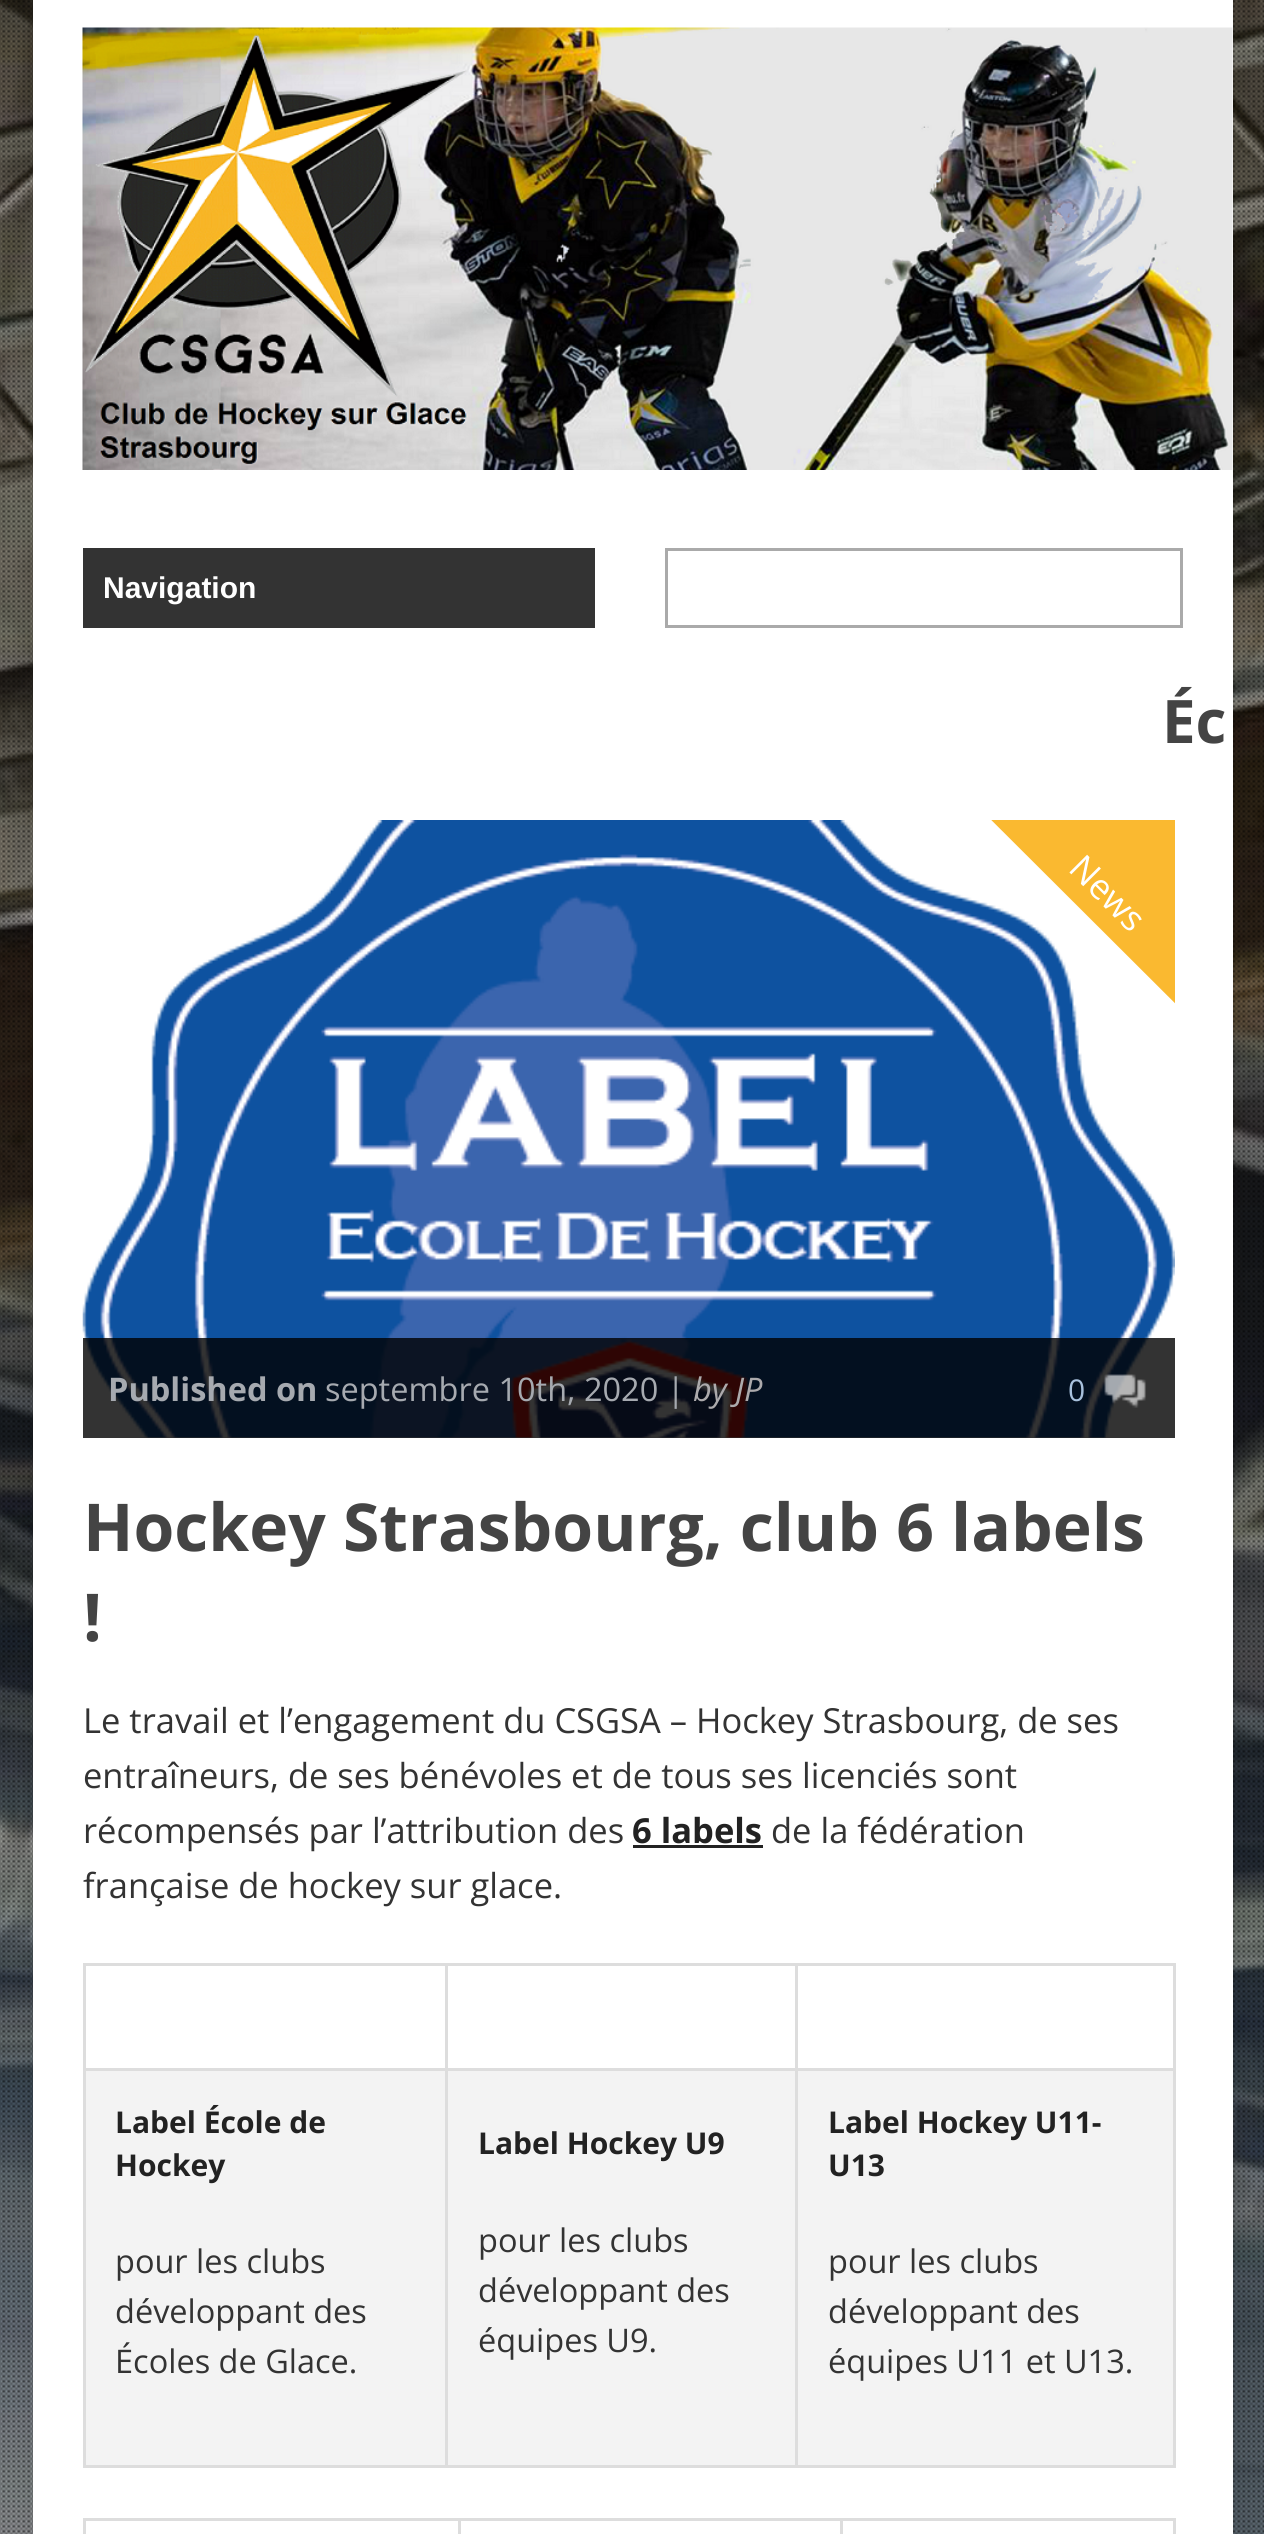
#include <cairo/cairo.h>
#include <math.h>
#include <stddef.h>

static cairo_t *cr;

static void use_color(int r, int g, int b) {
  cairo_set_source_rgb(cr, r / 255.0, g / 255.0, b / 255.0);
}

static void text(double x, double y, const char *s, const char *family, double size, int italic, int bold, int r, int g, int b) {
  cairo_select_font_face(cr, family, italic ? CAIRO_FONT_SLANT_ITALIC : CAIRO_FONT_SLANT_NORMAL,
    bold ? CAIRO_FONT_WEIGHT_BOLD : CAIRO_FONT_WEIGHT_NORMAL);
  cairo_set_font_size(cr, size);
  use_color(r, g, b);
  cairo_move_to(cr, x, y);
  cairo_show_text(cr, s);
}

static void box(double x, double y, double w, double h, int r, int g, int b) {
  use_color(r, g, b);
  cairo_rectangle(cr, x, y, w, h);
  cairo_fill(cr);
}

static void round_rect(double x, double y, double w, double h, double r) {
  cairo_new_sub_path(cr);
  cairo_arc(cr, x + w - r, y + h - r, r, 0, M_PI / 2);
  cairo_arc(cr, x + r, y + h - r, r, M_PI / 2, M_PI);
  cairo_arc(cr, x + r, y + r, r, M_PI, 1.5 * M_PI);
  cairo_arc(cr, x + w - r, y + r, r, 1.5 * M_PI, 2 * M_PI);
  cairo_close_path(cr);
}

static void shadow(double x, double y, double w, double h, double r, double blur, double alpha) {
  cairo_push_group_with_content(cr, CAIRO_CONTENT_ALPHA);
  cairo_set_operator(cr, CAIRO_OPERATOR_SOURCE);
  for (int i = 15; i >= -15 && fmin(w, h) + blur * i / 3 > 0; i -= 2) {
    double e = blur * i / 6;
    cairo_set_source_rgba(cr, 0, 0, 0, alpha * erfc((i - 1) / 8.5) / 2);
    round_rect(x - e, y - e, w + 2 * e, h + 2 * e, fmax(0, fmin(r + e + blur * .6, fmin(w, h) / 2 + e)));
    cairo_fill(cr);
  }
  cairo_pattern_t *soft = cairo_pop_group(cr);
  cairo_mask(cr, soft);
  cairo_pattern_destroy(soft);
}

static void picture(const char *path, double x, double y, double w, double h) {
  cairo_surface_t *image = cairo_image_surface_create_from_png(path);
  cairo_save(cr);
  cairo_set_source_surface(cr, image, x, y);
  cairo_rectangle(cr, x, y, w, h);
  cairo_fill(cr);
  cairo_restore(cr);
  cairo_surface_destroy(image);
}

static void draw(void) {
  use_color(0, 0, 0);
  cairo_paint(cr);
  picture("img_01.png", 0, 0, 1264, 2534);
  picture("img_02.png", 0, 0, 1264, 2534);
  shadow(33, 0, 1200, 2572, 0, 12.5, 0.1);
  box(33, 0, 1200, 2534, 255, 255, 255);
  picture("img_03.png", 82, 27, 1151, 443);
  box(83, 548, 512, 80, 51, 51, 51);
  cairo_rectangle(cr, 666.5, 549.5, 515, 77);
  use_color(170, 170, 170);
  cairo_set_line_width(cr, 3);
  cairo_stroke(cr);
  picture("img_04.png", 82, 820, 1093, 618);
  cairo_save(cr);
  cairo_rectangle(cr, 83, 820, 1092, 618);
  cairo_clip(cr);
  use_color(250, 185, 48);
  cairo_new_path(cr);
  cairo_move_to(cr, 1072, 575);
  cairo_line_to(cr, 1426, 929);
  cairo_line_to(cr, 1263, 1091);
  cairo_line_to(cr, 909, 738);
  cairo_close_path(cr);
  cairo_fill(cr);
  cairo_restore(cr);
  cairo_set_source_rgba(cr, 0, 0, 0, 0.8);
  cairo_rectangle(cr, 83, 1338, 1092, 100);
  cairo_fill(cr);
  picture("img_05.png", 1104, 1374, 42, 34);
  box(633, 1845, 130, 3, 34, 34, 34);
  box(83, 1963, 1092, 3, 221, 221, 221);
  box(83, 1963, 3, 505, 221, 221, 221);
  box(86, 2071, 1087, 394, 243, 243, 243);
  box(1173, 1963, 3, 505, 221, 221, 221);
  box(795, 2465, 380, 3, 221, 221, 221);
  box(795, 2068, 3, 400, 221, 221, 221);
  box(795, 2068, 380, 3, 221, 221, 221);
  box(795, 1963, 3, 107, 221, 221, 221);
  box(445, 2465, 353, 3, 221, 221, 221);
  box(445, 2068, 3, 400, 221, 221, 221);
  box(445, 2068, 353, 3, 221, 221, 221);
  box(445, 1963, 3, 107, 221, 221, 221);
  box(83, 2068, 365, 3, 221, 221, 221);
  box(83, 2465, 365, 3, 221, 221, 221);
  box(83, 2518, 1092, 3, 221, 221, 221);
  box(83, 2518, 3, 16, 221, 221, 221);
  box(458, 2518, 3, 16, 221, 221, 221);
  box(840, 2518, 3, 16, 221, 221, 221);
  box(1173, 2518, 3, 16, 221, 221, 221);
  text(103, 598, "Navigation", "Liberation Sans", 30, 0, 1, 255, 255, 255);
  text(1162, 743, "Éc", "Open Sans", 60, 0, 1, 68, 68, 68);
  cairo_save(cr);
  cairo_translate(cr, 1067, 870);
  cairo_rotate(cr, 45 * M_PI / 180);
  text(0, 0, "News", "Open Sans", 35, 0, 0, 255, 255, 255);
  cairo_restore(cr);
  text(108, 1401, "Published on", "Open Sans", 32.5, 0, 1, 166, 170, 176);
  text(325, 1401, "septembre 10th, 2020 |", "Open Sans", 32.5, 0, 0, 166, 170, 176);
  text(693, 1401, "by JP", "Open Sans", 32.5, 1, 0, 172, 170, 172);
  text(1068, 1401, "0", "Open Sans", 30, 0, 0, 168, 193, 221);
  text(83, 1551, "Hockey Strasbourg, club 6 labels", "Open Sans", 66, 0, 1, 68, 68, 68);
  text(83, 1641, "!", "Open Sans", 66, 0, 1, 68, 68, 68);
  text(83, 1733, "Le travail et l’engagement du CSGSA – Hockey Strasbourg, de ses", "Open Sans", 34.5, 0, 0, 51, 51, 51);
  text(83, 1788, "entraîneurs, de ses bénévoles et de tous ses licenciés sont", "Open Sans", 34.5, 0, 0, 51, 51, 51);
  text(83, 1843, "récompensés par l’attribution des", "Open Sans", 34.5, 0, 0, 51, 51, 51);
  text(632, 1843, "6 labels", "Open Sans", 34.5, 0, 1, 34, 34, 34);
  text(771, 1843, "de la fédération", "Open Sans", 34.5, 0, 0, 51, 51, 51);
  text(83, 1898, "française de hockey sur glace.", "Open Sans", 34.5, 0, 0, 51, 51, 51);
  text(115, 2133, "Label École de", "Open Sans", 30, 0, 1, 34, 34, 34);
  text(115, 2176, "Hockey", "Open Sans", 30, 0, 1, 34, 34, 34);
  text(115, 2273, "pour les clubs", "Open Sans", 32.5, 0, 0, 51, 51, 51);
  text(115, 2323, "développant des", "Open Sans", 32.5, 0, 0, 51, 51, 51);
  text(115, 2373, "Écoles de Glace.", "Open Sans", 32.5, 0, 0, 51, 51, 51);
  text(478, 2154, "Label Hockey U9", "Open Sans", 30, 0, 1, 34, 34, 34);
  text(478, 2252, "pour les clubs", "Open Sans", 32.5, 0, 0, 51, 51, 51);
  text(478, 2302, "développant des", "Open Sans", 32.5, 0, 0, 51, 51, 51);
  text(478, 2352, "équipes U9.", "Open Sans", 32.5, 0, 0, 51, 51, 51);
  text(828, 2133, "Label Hockey U11-", "Open Sans", 30, 0, 1, 34, 34, 34);
  text(828, 2176, "U13", "Open Sans", 30, 0, 1, 34, 34, 34);
  text(828, 2273, "pour les clubs", "Open Sans", 32.5, 0, 0, 51, 51, 51);
  text(828, 2323, "développant des", "Open Sans", 32.5, 0, 0, 51, 51, 51);
  text(828, 2373, "équipes U11 et U13.", "Open Sans", 32.5, 0, 0, 51, 51, 51);
}

int main(void) {
  cairo_surface_t *surface = cairo_image_surface_create(CAIRO_FORMAT_RGB24, 1264, 2534);
  cr = cairo_create(surface);
  cairo_font_options_t *options = cairo_font_options_create();
  cairo_font_options_set_hint_metrics(options, CAIRO_HINT_METRICS_OFF);
  cairo_font_options_set_hint_style(options, CAIRO_HINT_STYLE_NONE);
  cairo_set_font_options(cr, options);
  cairo_set_miter_limit(cr, 4);
  draw();
  cairo_surface_write_to_png(surface, "out.png");
  cairo_font_options_destroy(options);
  cairo_destroy(cr);
  cairo_surface_destroy(surface);
  return 0;
}
